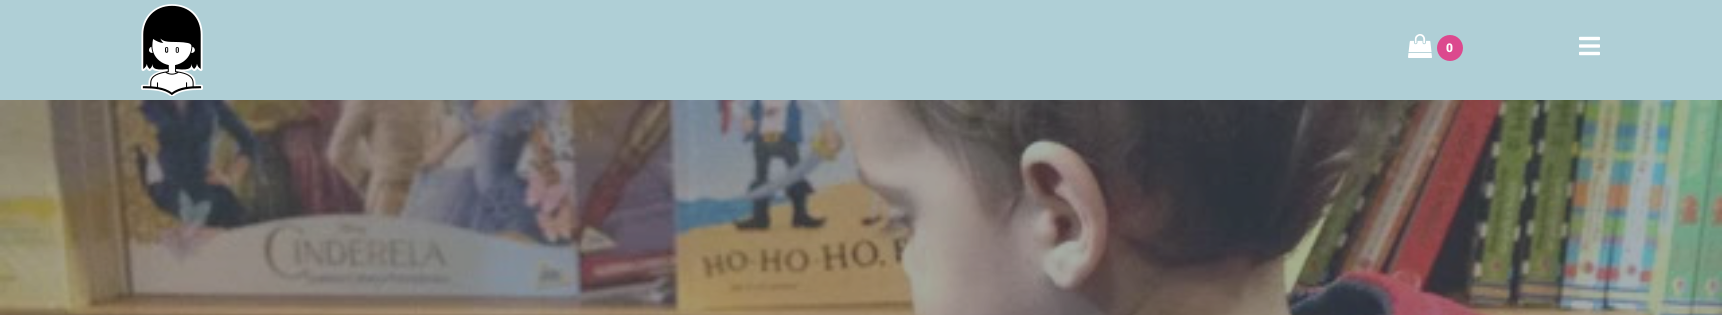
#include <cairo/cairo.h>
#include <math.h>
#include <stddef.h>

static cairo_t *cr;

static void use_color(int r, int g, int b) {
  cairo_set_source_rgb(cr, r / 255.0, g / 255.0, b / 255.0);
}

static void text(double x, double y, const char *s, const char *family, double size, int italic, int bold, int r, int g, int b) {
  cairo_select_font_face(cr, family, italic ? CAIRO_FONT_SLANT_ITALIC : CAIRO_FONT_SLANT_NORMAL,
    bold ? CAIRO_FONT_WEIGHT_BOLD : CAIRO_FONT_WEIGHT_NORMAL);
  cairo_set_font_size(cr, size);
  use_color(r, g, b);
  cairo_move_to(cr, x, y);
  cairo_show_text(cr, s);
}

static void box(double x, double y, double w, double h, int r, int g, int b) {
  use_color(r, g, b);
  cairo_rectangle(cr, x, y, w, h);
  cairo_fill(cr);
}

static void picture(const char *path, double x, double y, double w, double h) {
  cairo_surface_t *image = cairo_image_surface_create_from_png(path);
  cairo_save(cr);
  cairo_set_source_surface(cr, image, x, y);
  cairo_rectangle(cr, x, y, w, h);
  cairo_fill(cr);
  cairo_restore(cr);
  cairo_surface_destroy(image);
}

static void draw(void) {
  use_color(255, 255, 255);
  cairo_paint(cr);
  box(0, 0, 1722, 100, 175, 207, 214);
  picture("img_01.png", 141, 4, 62, 92);
  picture("img_02.png", 1408, 34, 24, 24);
  use_color(220, 73, 142);
  cairo_arc(cr, 1450, 48, 13, 0, 2 * M_PI);
  cairo_fill(cr);
  picture("img_03.png", 1579, 36, 21, 20);
  picture("img_04.png", 0, 100, 1722, 215);
  text(1446, 52, "0", "Roboto Black", 12, 0, 0, 255, 255, 255);
}

int main(void) {
  cairo_surface_t *surface = cairo_image_surface_create(CAIRO_FORMAT_RGB24, 1722, 315);
  cr = cairo_create(surface);
  cairo_font_options_t *options = cairo_font_options_create();
  cairo_font_options_set_hint_metrics(options, CAIRO_HINT_METRICS_OFF);
  cairo_font_options_set_hint_style(options, CAIRO_HINT_STYLE_NONE);
  cairo_set_font_options(cr, options);
  cairo_set_miter_limit(cr, 4);
  draw();
  cairo_surface_write_to_png(surface, "out.png");
  cairo_font_options_destroy(options);
  cairo_destroy(cr);
  cairo_surface_destroy(surface);
  return 0;
}
